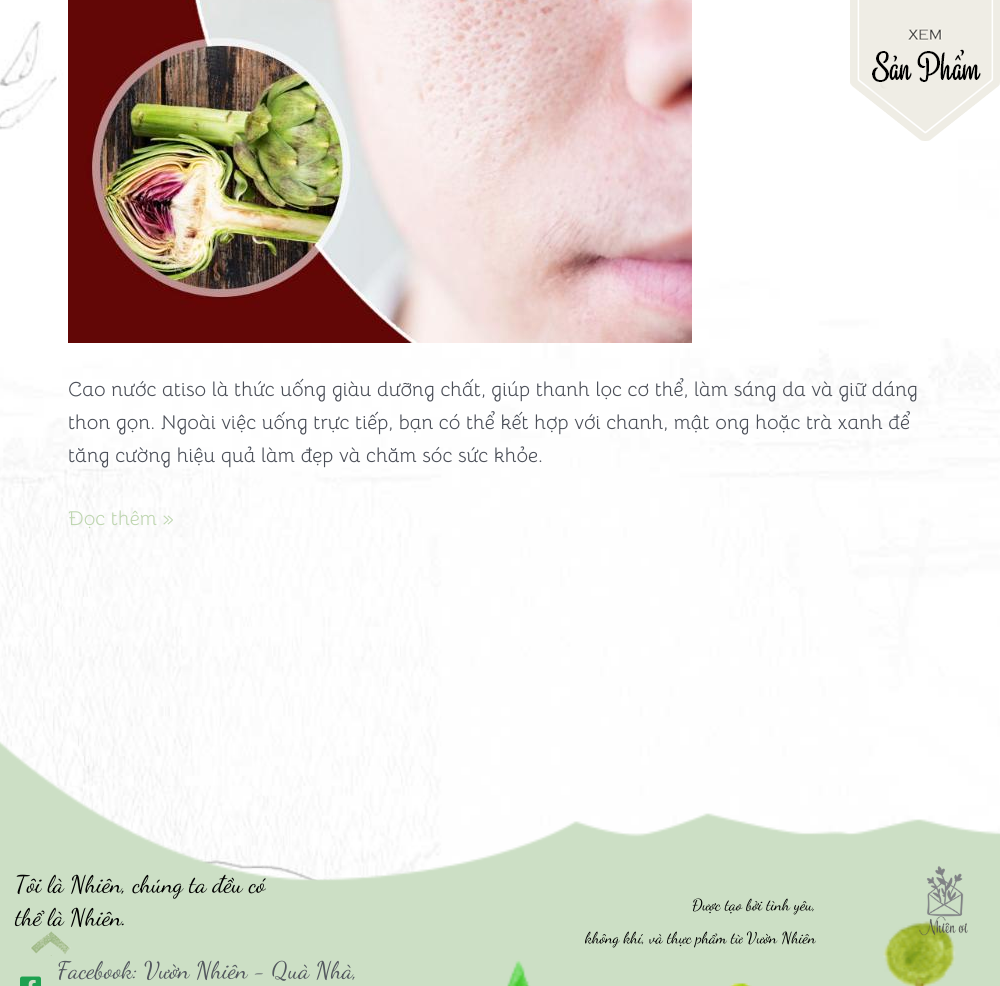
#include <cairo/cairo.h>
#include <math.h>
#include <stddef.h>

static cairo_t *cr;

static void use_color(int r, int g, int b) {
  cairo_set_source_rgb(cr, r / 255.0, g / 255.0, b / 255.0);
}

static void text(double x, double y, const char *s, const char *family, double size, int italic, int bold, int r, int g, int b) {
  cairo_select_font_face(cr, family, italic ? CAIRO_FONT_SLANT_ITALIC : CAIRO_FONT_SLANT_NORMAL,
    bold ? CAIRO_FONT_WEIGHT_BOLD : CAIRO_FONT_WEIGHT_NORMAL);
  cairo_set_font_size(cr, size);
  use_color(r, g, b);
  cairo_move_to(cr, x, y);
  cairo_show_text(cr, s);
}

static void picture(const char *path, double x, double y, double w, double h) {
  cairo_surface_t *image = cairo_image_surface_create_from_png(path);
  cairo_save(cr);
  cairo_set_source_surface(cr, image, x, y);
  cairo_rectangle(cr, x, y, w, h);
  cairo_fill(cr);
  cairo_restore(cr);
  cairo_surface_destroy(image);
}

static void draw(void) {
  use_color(255, 255, 255);
  cairo_paint(cr);
  picture("img_01.png", 0, 0, 1000, 882);
  picture("img_02.png", 850, 0, 150, 141);
  picture("img_03.png", 68, 0, 624, 343);
  picture("img_04.png", 0, 741, 1000, 245);
  picture("img_05.png", 20, 976, 21, 10);
  picture("img_06.png", 919, 866, 49, 70);
  picture("img_07.png", 30, 931, 41, 25);
  text(68, 396, "Cao nước atiso là thức uống giàu dưỡng chất, giúp thanh lọc cơ thể, làm sáng da và giữ dáng", "Bellota", 20, 0, 0, 75, 79, 88);
  text(68, 429, "thon gọn. Ngoài việc uống trực tiếp, bạn có thể kết hợp với chanh, mật ong hoặc trà xanh để", "Bellota", 20, 0, 0, 75, 79, 88);
  text(68, 462, "tăng cường hiệu quả làm đẹp và chăm sóc sức khỏe.", "Bellota", 20, 0, 0, 75, 79, 88);
  text(68, 525, "Đọc thêm »", "Bellota", 20, 0, 0, 191, 214, 177);
  text(15, 892, "Tôi là Nhiên, chúng ta đều có", "Dancing Script", 24, 0, 0, 0, 0, 0);
  text(15, 925, "thể là Nhiên.", "Dancing Script", 24, 0, 0, 0, 0, 0);
  text(57, 978, "Facebook: Vườn Nhiên - Quà Nhà,", "Dancing Script", 24, 0, 0, 84, 89, 95);
  text(692, 910, "Được tạo bởi tình yêu,", "Dancing Script", 16, 0, 0, 0, 0, 0);
  text(585, 943, "không khí, và thực phẩm từ Vườn Nhiên", "Dancing Script", 16, 0, 0, 0, 0, 0);
}

int main(void) {
  cairo_surface_t *surface = cairo_image_surface_create(CAIRO_FORMAT_RGB24, 1000, 986);
  cr = cairo_create(surface);
  cairo_font_options_t *options = cairo_font_options_create();
  cairo_font_options_set_hint_metrics(options, CAIRO_HINT_METRICS_OFF);
  cairo_font_options_set_hint_style(options, CAIRO_HINT_STYLE_NONE);
  cairo_set_font_options(cr, options);
  cairo_set_miter_limit(cr, 4);
  draw();
  cairo_surface_write_to_png(surface, "out.png");
  cairo_font_options_destroy(options);
  cairo_destroy(cr);
  cairo_surface_destroy(surface);
  return 0;
}
